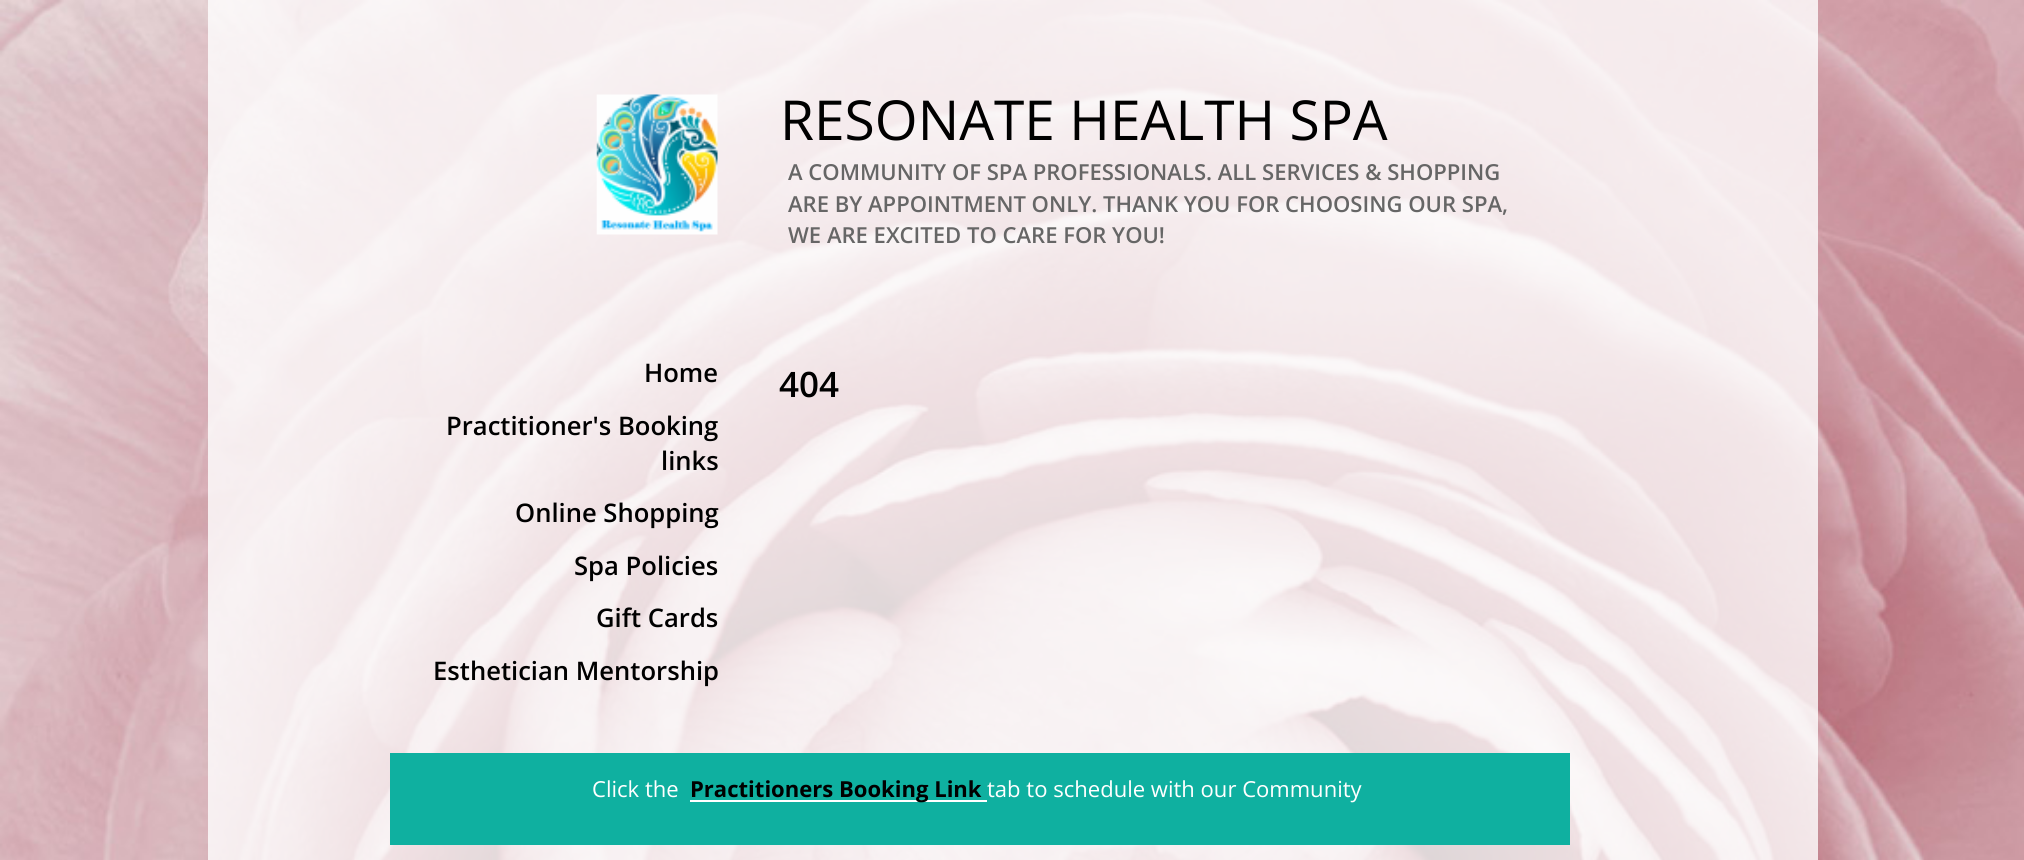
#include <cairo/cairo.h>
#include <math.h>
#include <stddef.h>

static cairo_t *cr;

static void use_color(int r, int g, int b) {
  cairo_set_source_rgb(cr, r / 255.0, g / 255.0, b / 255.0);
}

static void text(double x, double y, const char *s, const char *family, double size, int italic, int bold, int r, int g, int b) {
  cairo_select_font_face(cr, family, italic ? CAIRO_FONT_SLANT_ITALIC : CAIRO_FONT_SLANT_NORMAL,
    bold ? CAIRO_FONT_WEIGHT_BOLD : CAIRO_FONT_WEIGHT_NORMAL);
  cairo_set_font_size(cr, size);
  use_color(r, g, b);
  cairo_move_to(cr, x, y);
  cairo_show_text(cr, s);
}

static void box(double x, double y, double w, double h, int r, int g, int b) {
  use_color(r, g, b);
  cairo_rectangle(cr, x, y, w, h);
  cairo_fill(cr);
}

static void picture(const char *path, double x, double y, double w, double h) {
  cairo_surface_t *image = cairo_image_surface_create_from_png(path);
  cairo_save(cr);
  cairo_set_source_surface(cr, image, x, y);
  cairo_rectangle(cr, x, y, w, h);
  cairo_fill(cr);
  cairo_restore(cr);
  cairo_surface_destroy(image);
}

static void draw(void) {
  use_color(255, 255, 255);
  cairo_paint(cr);
  picture("img_01.png", 0, 0, 2024, 860);
  cairo_set_source_rgba(cr, 1, 1, 1, 0.8);
  cairo_rectangle(cr, 208, 0, 1610, 860);
  cairo_fill(cr);
  picture("img_02.png", 596, 94, 122, 141);
  box(390, 753, 1180, 92, 15, 176, 160);
  box(690, 800, 297, 2, 255, 255, 255);
  text(780, 140, "RESONATE HEALTH SPA", "Open Sans", 55.1, 0, 0, 0, 0, 0);
  text(788, 180, "A COMMUNITY OF SPA PROFESSIONALS. ALL SERVICES & SHOPPING", "Open Sans SemiBold", 22.05, 0, 0, 102, 102, 102);
  text(788, 212, "ARE BY APPOINTMENT ONLY. THANK YOU FOR CHOOSING OUR SPA,", "Open Sans SemiBold", 22.05, 0, 0, 102, 102, 102);
  text(788, 243, "WE ARE EXCITED TO CARE FOR YOU!", "Open Sans SemiBold", 22.05, 0, 0, 102, 102, 102);
  text(644, 382, "Home", "Open Sans SemiBold", 25.6, 0, 0, 0, 0, 0);
  text(446, 435, "Practitioner's Booking", "Open Sans SemiBold", 25.6, 0, 0, 0, 0, 0);
  text(661, 470, "links", "Open Sans SemiBold", 25.6, 0, 0, 0, 0, 0);
  text(515, 522, "Online Shopping", "Open Sans SemiBold", 25.6, 0, 0, 0, 0, 0);
  text(574, 575, "Spa Policies", "Open Sans SemiBold", 25.6, 0, 0, 0, 0, 0);
  text(596, 627, "Gift Cards", "Open Sans SemiBold", 25.6, 0, 0, 0, 0, 0);
  text(433, 680, "Esthetician Mentorship", "Open Sans SemiBold", 25.6, 0, 0, 0, 0, 0);
  text(779, 397, "404", "Open Sans SemiBold", 35, 0, 0, 0, 0, 0);
  text(592, 797, "Click the", "Open Sans", 22.05, 0, 0, 255, 255, 255);
  text(690, 797, "Practitioners Booking Link", "Open Sans", 22.05, 0, 1, 0, 0, 0);
  text(987, 797, "tab to schedule with our Community", "Open Sans", 22.05, 0, 0, 255, 255, 255);
}

int main(void) {
  cairo_surface_t *surface = cairo_image_surface_create(CAIRO_FORMAT_RGB24, 2024, 860);
  cr = cairo_create(surface);
  cairo_font_options_t *options = cairo_font_options_create();
  cairo_font_options_set_hint_metrics(options, CAIRO_HINT_METRICS_OFF);
  cairo_font_options_set_hint_style(options, CAIRO_HINT_STYLE_NONE);
  cairo_set_font_options(cr, options);
  cairo_set_miter_limit(cr, 4);
  draw();
  cairo_surface_write_to_png(surface, "out.png");
  cairo_font_options_destroy(options);
  cairo_destroy(cr);
  cairo_surface_destroy(surface);
  return 0;
}
